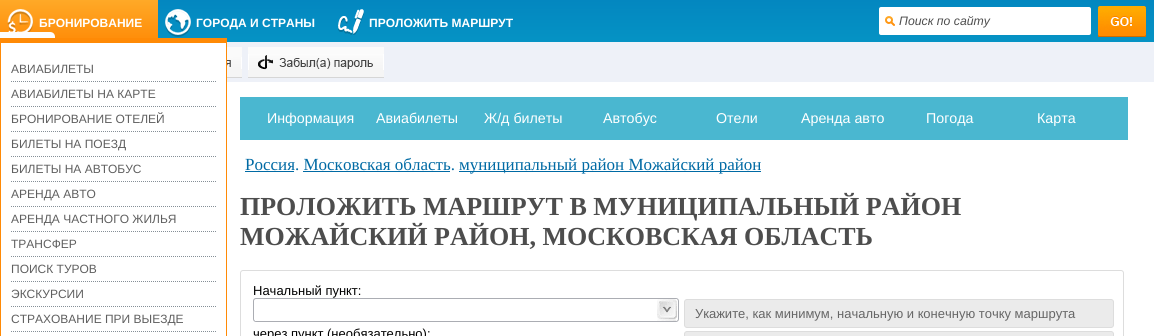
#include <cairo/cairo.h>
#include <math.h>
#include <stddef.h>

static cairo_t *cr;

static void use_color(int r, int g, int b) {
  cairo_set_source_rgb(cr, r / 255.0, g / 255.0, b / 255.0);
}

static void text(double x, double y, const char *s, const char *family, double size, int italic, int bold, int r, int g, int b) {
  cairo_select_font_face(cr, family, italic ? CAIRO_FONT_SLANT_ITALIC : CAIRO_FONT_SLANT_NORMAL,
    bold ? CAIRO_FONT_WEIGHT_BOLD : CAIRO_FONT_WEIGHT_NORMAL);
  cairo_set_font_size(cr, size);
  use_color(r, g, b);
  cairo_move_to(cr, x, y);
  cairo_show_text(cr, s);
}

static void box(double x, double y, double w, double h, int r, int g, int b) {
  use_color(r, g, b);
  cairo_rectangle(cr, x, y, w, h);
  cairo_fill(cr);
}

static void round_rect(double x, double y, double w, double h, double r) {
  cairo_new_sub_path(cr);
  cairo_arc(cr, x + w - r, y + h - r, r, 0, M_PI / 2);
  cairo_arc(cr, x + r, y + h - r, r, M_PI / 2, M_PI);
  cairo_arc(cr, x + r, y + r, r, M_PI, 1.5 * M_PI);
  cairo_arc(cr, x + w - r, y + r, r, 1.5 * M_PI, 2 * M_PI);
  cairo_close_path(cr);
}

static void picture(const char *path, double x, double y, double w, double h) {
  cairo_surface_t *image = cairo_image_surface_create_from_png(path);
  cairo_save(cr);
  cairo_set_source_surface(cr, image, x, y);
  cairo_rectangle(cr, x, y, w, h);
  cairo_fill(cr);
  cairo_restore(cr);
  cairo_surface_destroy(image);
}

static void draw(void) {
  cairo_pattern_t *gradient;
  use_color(238, 241, 248);
  cairo_paint(cr);
  gradient = cairo_pattern_create_linear(0, 0, 0, 42);
  cairo_pattern_add_color_stop_rgba(gradient, 0, 0.012, 0.529, 0.753, 1);
  cairo_pattern_add_color_stop_rgba(gradient, 1, 0.02, 0.576, 0.769, 1);
  cairo_set_source(cr, gradient);
  cairo_pattern_destroy(gradient);
  cairo_rectangle(cr, 158, 0, 996, 42);
  cairo_fill(cr);
  gradient = cairo_pattern_create_linear(0, 0, 0, 44);
  cairo_pattern_add_color_stop_rgba(gradient, 0, 1, 0.663, 0.153, 1);
  cairo_pattern_add_color_stop_rgba(gradient, 1, 1, 0.541, 0.024, 1);
  cairo_set_source(cr, gradient);
  cairo_pattern_destroy(gradient);
  cairo_rectangle(cr, 0, 0, 158, 38);
  cairo_fill(cr);
  picture("img_01.png", 7, 9, 26, 23);
  use_color(253, 253, 253);
  cairo_new_path(cr);
  cairo_move_to(cr, 0, 32);
  cairo_line_to(cr, 50, 32);
  cairo_curve_to(cr, 53, 32, 55, 34, 55, 37);
  cairo_line_to(cr, 55, 77);
  cairo_curve_to(cr, 55, 80, 53, 82, 50, 82);
  cairo_line_to(cr, 0, 82);
  cairo_close_path(cr);
  cairo_fill(cr);
  box(1, 43, 225, 293, 255, 255, 255);
  box(0, 38, 227, 5, 255, 138, 6);
  box(226, 38, 1, 298, 255, 138, 6);
  box(0, 38, 1, 298, 255, 138, 6);
  cairo_new_path(cr);
  cairo_move_to(cr, 11, 81.5);
  cairo_line_to(cr, 216, 81.5);
  use_color(133, 143, 151);
  cairo_set_line_width(cr, 1);
  cairo_set_dash(cr, (double[]){1, 1}, 2, 0);
  cairo_stroke(cr);
  cairo_new_path(cr);
  cairo_move_to(cr, 11, 106.5);
  cairo_line_to(cr, 216, 106.5);
  cairo_stroke(cr);
  cairo_new_path(cr);
  cairo_move_to(cr, 11, 131.5);
  cairo_line_to(cr, 216, 131.5);
  cairo_stroke(cr);
  cairo_new_path(cr);
  cairo_move_to(cr, 11, 156.5);
  cairo_line_to(cr, 216, 156.5);
  cairo_stroke(cr);
  cairo_new_path(cr);
  cairo_move_to(cr, 11, 181.5);
  cairo_line_to(cr, 216, 181.5);
  cairo_stroke(cr);
  cairo_new_path(cr);
  cairo_move_to(cr, 11, 206.5);
  cairo_line_to(cr, 216, 206.5);
  cairo_stroke(cr);
  cairo_new_path(cr);
  cairo_move_to(cr, 11, 231.5);
  cairo_line_to(cr, 216, 231.5);
  cairo_stroke(cr);
  cairo_new_path(cr);
  cairo_move_to(cr, 11, 256.5);
  cairo_line_to(cr, 216, 256.5);
  cairo_stroke(cr);
  cairo_new_path(cr);
  cairo_move_to(cr, 11, 281.5);
  cairo_line_to(cr, 216, 281.5);
  cairo_stroke(cr);
  cairo_new_path(cr);
  cairo_move_to(cr, 11, 306.5);
  cairo_line_to(cr, 216, 306.5);
  cairo_stroke(cr);
  cairo_new_path(cr);
  cairo_move_to(cr, 11, 331.5);
  cairo_line_to(cr, 216, 331.5);
  cairo_stroke(cr);
  picture("img_02.png", 165, 9, 26, 28);
  picture("img_03.png", 338, 9, 26, 26);
  use_color(255, 255, 255);
  round_rect(879, 7, 212, 28, 2);
  cairo_fill(cr);
  picture("img_04.png", 885, 16, 10, 10);
  picture("img_05.png", 1098, 6, 48, 31);
  picture("img_06.png", 227, 47, 15, 31);
  picture("img_07.png", 248, 47, 136, 31);
  box(227, 82, 927, 254, 255, 255, 255);
  box(240, 97, 888, 43, 74, 183, 208);
  box(245, 171, 49, 1, 0, 106, 164);
  box(459, 171, 302, 1, 0, 106, 164);
  box(303, 171, 147, 1, 0, 106, 164);
  round_rect(240.5, 270.5, 883, 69, 2.5);
  use_color(221, 221, 221);
  cairo_set_dash(cr, NULL, 0, 0);
  cairo_stroke(cr);
  round_rect(253.5, 298.5, 425, 23, 2.5);
  use_color(171, 173, 179);
  cairo_stroke(cr);
  box(255, 320, 1, 1, 255, 255, 255);
  picture("img_08.png", 657, 299, 20, 22);
  use_color(235, 235, 235);
  round_rect(684.5, 299.5, 429, 28, 2.5);
  cairo_fill_preserve(cr);
  use_color(221, 221, 221);
  cairo_stroke(cr);
  use_color(235, 235, 235);
  round_rect(684.5, 331.5, 429, 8, 2.5);
  cairo_fill_preserve(cr);
  use_color(221, 221, 221);
  cairo_stroke(cr);
  text(39, 27, "БРОНИРОВАНИЕ", "Liberation Sans", 12, 0, 1, 255, 255, 255);
  text(11, 73, "АВИАБИЛЕТЫ", "Liberation Sans", 12, 0, 0, 95, 95, 95);
  text(11, 98, "АВИАБИЛЕТЫ НА КАРТЕ", "Liberation Sans", 12, 0, 0, 95, 95, 95);
  text(11, 123, "БРОНИРОВАНИЕ ОТЕЛЕЙ", "Liberation Sans", 12, 0, 0, 95, 95, 95);
  text(11, 148, "БИЛЕТЫ НА ПОЕЗД", "Liberation Sans", 12, 0, 0, 95, 95, 95);
  text(11, 173, "БИЛЕТЫ НА АВТОБУС", "Liberation Sans", 12, 0, 0, 95, 95, 95);
  text(11, 198, "АРЕНДА АВТО", "Liberation Sans", 12, 0, 0, 95, 95, 95);
  text(11, 223, "АРЕНДА ЧАСТНОГО ЖИЛЬЯ", "Liberation Sans", 12, 0, 0, 95, 95, 95);
  text(11, 248, "ТРАНСФЕР", "Liberation Sans", 12, 0, 0, 95, 95, 95);
  text(11, 273, "ПОИСК ТУРОВ", "Liberation Sans", 12, 0, 0, 95, 95, 95);
  text(11, 298, "ЭКСКУРСИИ", "Liberation Sans", 12, 0, 0, 95, 95, 95);
  text(11, 323, "СТРАХОВАНИЕ ПРИ ВЫЕЗДЕ", "Liberation Sans", 12, 0, 0, 95, 95, 95);
  text(196, 27, "ГОРОДА И СТРАНЫ", "Liberation Sans", 12, 0, 1, 255, 255, 255);
  text(369, 27, "ПРОЛОЖИТЬ МАРШРУТ", "Liberation Sans", 12, 0, 1, 255, 255, 255);
  text(899, 25, "Поиск по сайту", "Liberation Sans", 12.25, 1, 0, 77, 77, 77);
  text(267, 123, "Информация", "Liberation Sans", 14.25, 0, 0, 255, 255, 255);
  text(376, 123, "Авиабилеты", "Liberation Sans", 14.25, 0, 0, 255, 255, 255);
  text(484, 123, "Ж/д билеты", "Liberation Sans", 14.25, 0, 0, 255, 255, 255);
  text(603, 123, "Автобус", "Liberation Sans", 14.25, 0, 0, 255, 255, 255);
  text(716, 123, "Отели", "Liberation Sans", 14.25, 0, 0, 255, 255, 255);
  text(801, 123, "Аренда авто", "Liberation Sans", 14.25, 0, 0, 255, 255, 255);
  text(926, 123, "Погода", "Liberation Sans", 14.25, 0, 0, 255, 255, 255);
  text(1037, 123, "Карта", "Liberation Sans", 14.25, 0, 0, 255, 255, 255);
  text(245, 170, "Россия. Московская область.", "Liberation Serif", 17, 0, 0, 0, 106, 164);
  text(459, 170, "муниципальный район Можайский район", "Liberation Serif", 17, 0, 0, 0, 106, 164);
  text(240, 215, "ПРОЛОЖИТЬ МАРШРУТ В МУНИЦИПАЛЬНЫЙ РАЙОН", "Liberation Serif", 26, 0, 1, 77, 77, 77);
  text(240, 245, "МОЖАЙСКИЙ РАЙОН, МОСКОВСКАЯ ОБЛАСТЬ", "Liberation Serif", 26, 0, 1, 77, 77, 77);
  text(253, 295, "Начальный пункт:", "Liberation Sans", 13, 0, 0, 0, 0, 0);
  text(253, 338, "через пункт (необязательно):", "Liberation Sans", 13, 0, 0, 0, 0, 0);
  text(695, 318, "Укажите, как минимум, начальную и конечную точку маршрута", "Liberation Sans", 13, 0, 0, 102, 102, 102);
}

int main(void) {
  cairo_surface_t *surface = cairo_image_surface_create(CAIRO_FORMAT_RGB24, 1154, 336);
  cr = cairo_create(surface);
  cairo_font_options_t *options = cairo_font_options_create();
  cairo_font_options_set_hint_metrics(options, CAIRO_HINT_METRICS_OFF);
  cairo_font_options_set_hint_style(options, CAIRO_HINT_STYLE_NONE);
  cairo_set_font_options(cr, options);
  cairo_set_miter_limit(cr, 4);
  draw();
  cairo_surface_write_to_png(surface, "out.png");
  cairo_font_options_destroy(options);
  cairo_destroy(cr);
  cairo_surface_destroy(surface);
  return 0;
}
